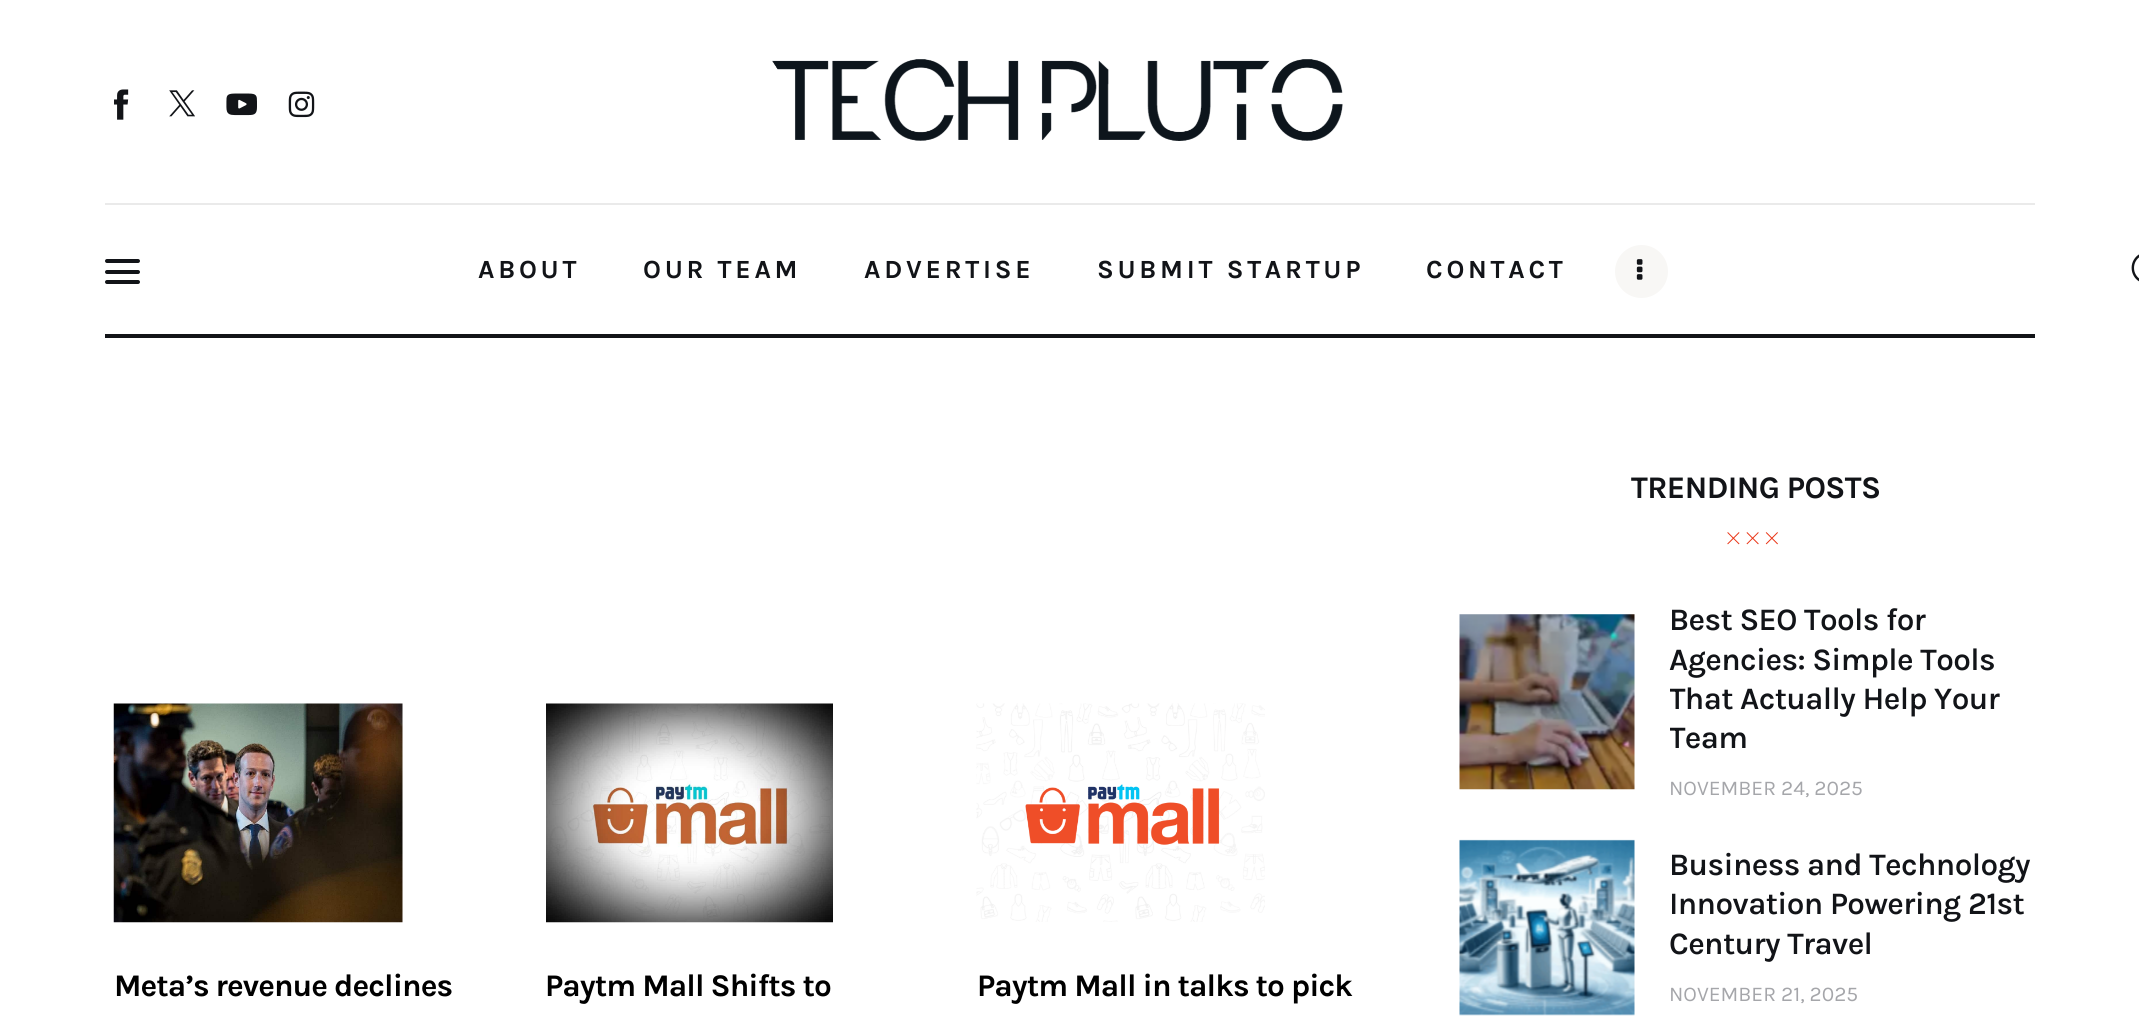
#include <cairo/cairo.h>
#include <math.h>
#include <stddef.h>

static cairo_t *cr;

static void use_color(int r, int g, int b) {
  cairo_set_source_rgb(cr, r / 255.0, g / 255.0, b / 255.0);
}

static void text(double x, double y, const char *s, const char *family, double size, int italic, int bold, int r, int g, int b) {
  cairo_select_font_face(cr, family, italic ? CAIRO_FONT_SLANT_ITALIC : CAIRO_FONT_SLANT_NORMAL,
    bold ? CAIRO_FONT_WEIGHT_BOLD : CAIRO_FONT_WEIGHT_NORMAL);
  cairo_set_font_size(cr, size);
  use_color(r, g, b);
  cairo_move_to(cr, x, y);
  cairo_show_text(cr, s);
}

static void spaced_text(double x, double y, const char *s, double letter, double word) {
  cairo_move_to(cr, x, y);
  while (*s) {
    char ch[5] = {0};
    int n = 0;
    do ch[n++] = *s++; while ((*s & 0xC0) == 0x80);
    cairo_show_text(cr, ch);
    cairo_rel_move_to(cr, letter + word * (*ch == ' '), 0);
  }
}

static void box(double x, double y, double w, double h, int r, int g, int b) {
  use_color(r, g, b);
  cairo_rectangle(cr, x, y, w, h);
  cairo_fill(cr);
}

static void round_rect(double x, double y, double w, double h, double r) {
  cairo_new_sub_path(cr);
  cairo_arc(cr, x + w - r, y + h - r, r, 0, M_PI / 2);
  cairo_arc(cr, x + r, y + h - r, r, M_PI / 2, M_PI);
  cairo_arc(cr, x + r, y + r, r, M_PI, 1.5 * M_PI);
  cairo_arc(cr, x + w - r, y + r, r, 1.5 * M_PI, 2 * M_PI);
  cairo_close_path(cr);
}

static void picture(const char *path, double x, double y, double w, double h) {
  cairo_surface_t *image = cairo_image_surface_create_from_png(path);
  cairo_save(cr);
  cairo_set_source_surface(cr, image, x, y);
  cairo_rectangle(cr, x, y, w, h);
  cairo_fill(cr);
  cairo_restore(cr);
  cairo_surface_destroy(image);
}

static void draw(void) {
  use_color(255, 255, 255);
  cairo_paint(cr);
  picture("img_01.png", 114, 89, 15, 31);
  picture("img_02.png", 169, 90, 26, 27);
  picture("img_03.png", 226, 93, 31, 23);
  picture("img_04.png", 288, 91, 27, 27);
  picture("img_05.png", 772, 59, 571, 82);
  box(105, 203, 1930, 2, 234, 234, 234);
  use_color(18, 20, 24);
  round_rect(105, 259, 35, 4, 2);
  cairo_fill(cr);
  round_rect(105, 270, 35, 4, 2);
  cairo_fill(cr);
  round_rect(105, 280, 35, 4, 2);
  cairo_fill(cr);
  use_color(248, 247, 245);
  cairo_arc(cr, 1641.5, 271.5, 26.5, 0, 2 * M_PI);
  cairo_fill(cr);
  picture("img_06.png", 1636, 259, 7, 21);
  picture("img_07.png", 2131, 254, 8, 28);
  box(105, 334, 1930, 4, 18, 20, 24);
  picture("img_08.png", 113, 703, 290, 220);
  picture("img_09.png", 546, 703, 287, 220);
  picture("img_10.png", 976, 703, 289, 219);
  picture("img_11.png", 1727, 532, 13, 13);
  picture("img_12.png", 1746, 532, 13, 13);
  picture("img_13.png", 1765, 532, 13, 13);
  picture("img_14.png", 1459, 614, 176, 176);
  picture("img_15.png", 1459, 839, 176, 177);
  cairo_select_font_face(cr, "Karla", CAIRO_FONT_SLANT_NORMAL, CAIRO_FONT_WEIGHT_BOLD);
  cairo_set_font_size(cr, 26.25);
  spaced_text(478, 278, "ABOUT", 3.75, 0);
  spaced_text(643, 278, "OUR TEAM", 3.75, 0);
  spaced_text(864, 278, "ADVERTISE", 3.75, 0);
  spaced_text(1097, 278, "SUBMIT STARTUP", 3.75, 0);
  spaced_text(1426, 278, "CONTACT", 3.75, 0);
  cairo_set_font_size(cr, 31.5);
  use_color(0, 0, 0);
  spaced_text(114, 996, "Meta’s revenue declines", -0.95, 0);
  spaced_text(545, 996, "Paytm Mall Shifts to", -0.95, 0);
  spaced_text(977, 996, "Paytm Mall in talks to pick", -0.95, 0);
  use_color(18, 20, 24);
  spaced_text(1631, 498, "TRENDING POSTS", -0.6, 0);
  cairo_select_font_face(cr, "Karla SemiBold", CAIRO_FONT_SLANT_NORMAL, CAIRO_FONT_WEIGHT_NORMAL);
  spaced_text(1669, 630, "Best SEO Tools for", -0.6, 0);
  spaced_text(1669, 670, "Agencies: Simple Tools", -0.6, 0);
  cairo_save(cr);
  cairo_rectangle(cr, 1670, 600, 383, 203);
  cairo_clip(cr);
  spaced_text(1669, 709, "That Actually Help Your", -0.6, 0);
  spaced_text(1669, 748, "Team", -0.6, 0);
  cairo_restore(cr);
  text(1669, 795, "NOVEMBER 24, 2025", "Karla", 21, 0, 0, 165, 166, 170);
  cairo_select_font_face(cr, "Karla SemiBold", CAIRO_FONT_SLANT_NORMAL, CAIRO_FONT_WEIGHT_NORMAL);
  cairo_set_font_size(cr, 31.5);
  use_color(18, 20, 24);
  spaced_text(1669, 875, "Business and Technology", -0.6, 0);
  spaced_text(1669, 914, "Innovation Powering 21st", -0.6, 0);
  spaced_text(1669, 954, "Century Travel", -0.6, 0);
  text(1669, 1001, "NOVEMBER 21, 2025", "Karla", 21, 0, 0, 165, 166, 170);
}

int main(void) {
  cairo_surface_t *surface = cairo_image_surface_create(CAIRO_FORMAT_RGB24, 2139, 1035);
  cr = cairo_create(surface);
  cairo_font_options_t *options = cairo_font_options_create();
  cairo_font_options_set_hint_metrics(options, CAIRO_HINT_METRICS_OFF);
  cairo_font_options_set_hint_style(options, CAIRO_HINT_STYLE_NONE);
  cairo_set_font_options(cr, options);
  cairo_set_miter_limit(cr, 4);
  draw();
  cairo_surface_write_to_png(surface, "out.png");
  cairo_font_options_destroy(options);
  cairo_destroy(cr);
  cairo_surface_destroy(surface);
  return 0;
}
